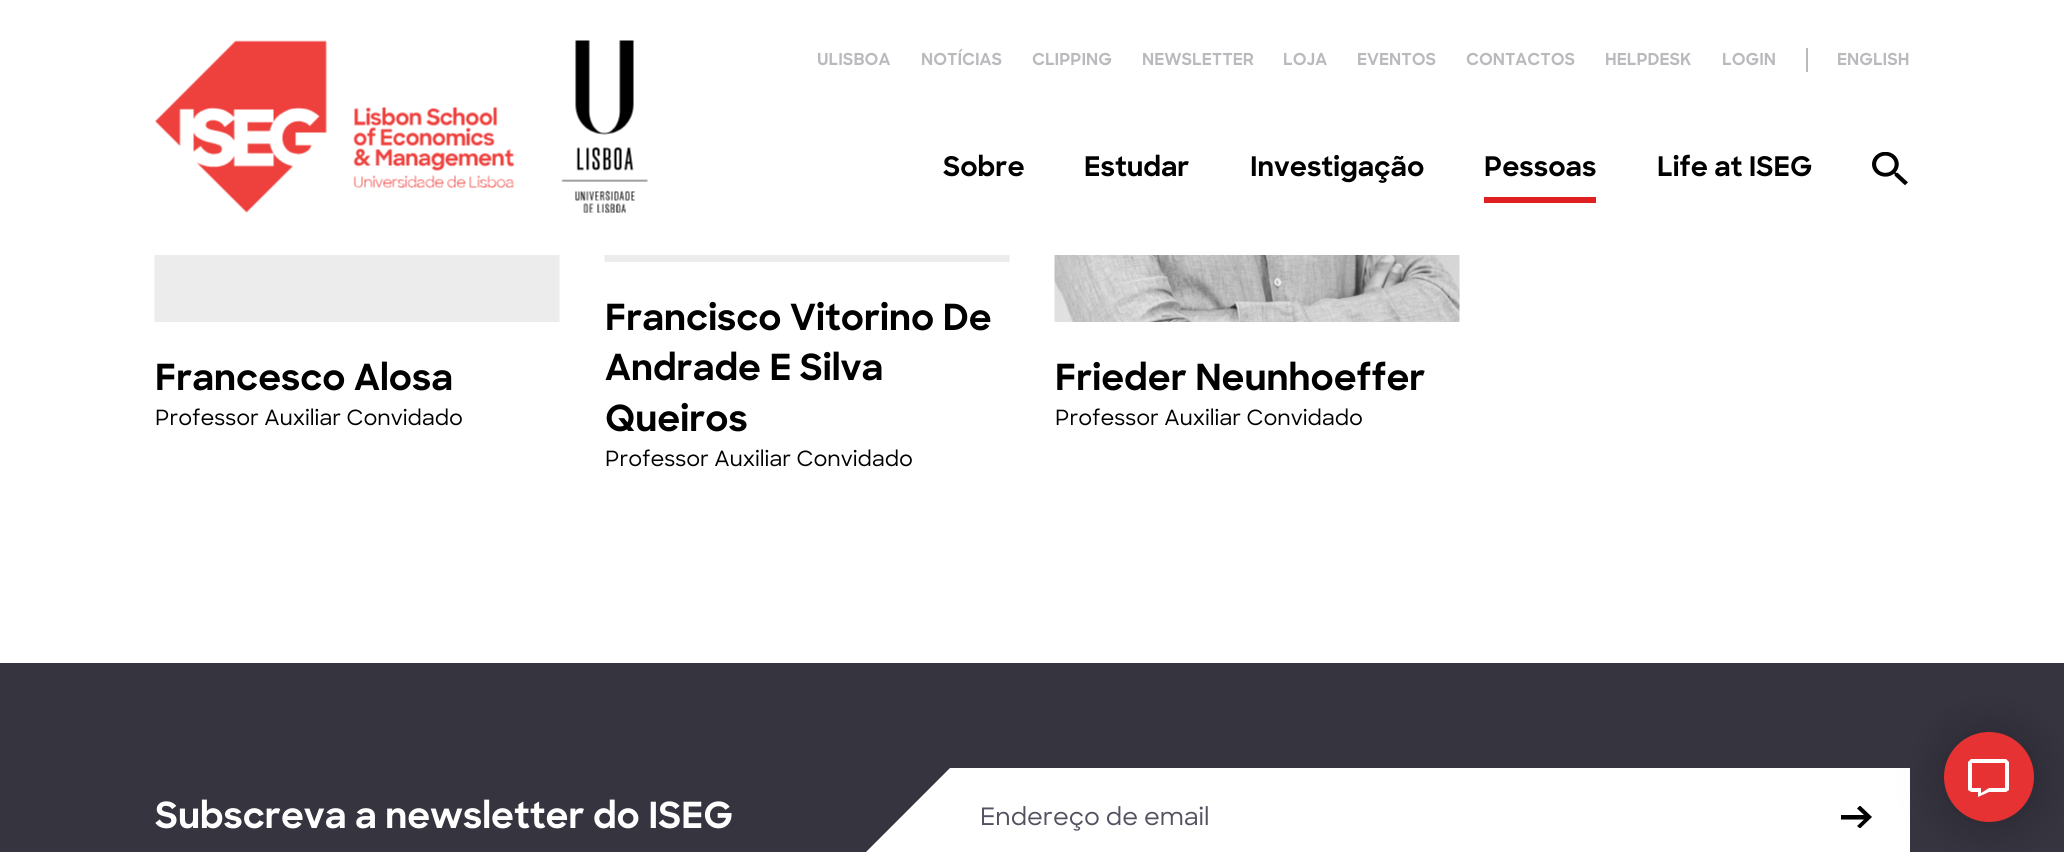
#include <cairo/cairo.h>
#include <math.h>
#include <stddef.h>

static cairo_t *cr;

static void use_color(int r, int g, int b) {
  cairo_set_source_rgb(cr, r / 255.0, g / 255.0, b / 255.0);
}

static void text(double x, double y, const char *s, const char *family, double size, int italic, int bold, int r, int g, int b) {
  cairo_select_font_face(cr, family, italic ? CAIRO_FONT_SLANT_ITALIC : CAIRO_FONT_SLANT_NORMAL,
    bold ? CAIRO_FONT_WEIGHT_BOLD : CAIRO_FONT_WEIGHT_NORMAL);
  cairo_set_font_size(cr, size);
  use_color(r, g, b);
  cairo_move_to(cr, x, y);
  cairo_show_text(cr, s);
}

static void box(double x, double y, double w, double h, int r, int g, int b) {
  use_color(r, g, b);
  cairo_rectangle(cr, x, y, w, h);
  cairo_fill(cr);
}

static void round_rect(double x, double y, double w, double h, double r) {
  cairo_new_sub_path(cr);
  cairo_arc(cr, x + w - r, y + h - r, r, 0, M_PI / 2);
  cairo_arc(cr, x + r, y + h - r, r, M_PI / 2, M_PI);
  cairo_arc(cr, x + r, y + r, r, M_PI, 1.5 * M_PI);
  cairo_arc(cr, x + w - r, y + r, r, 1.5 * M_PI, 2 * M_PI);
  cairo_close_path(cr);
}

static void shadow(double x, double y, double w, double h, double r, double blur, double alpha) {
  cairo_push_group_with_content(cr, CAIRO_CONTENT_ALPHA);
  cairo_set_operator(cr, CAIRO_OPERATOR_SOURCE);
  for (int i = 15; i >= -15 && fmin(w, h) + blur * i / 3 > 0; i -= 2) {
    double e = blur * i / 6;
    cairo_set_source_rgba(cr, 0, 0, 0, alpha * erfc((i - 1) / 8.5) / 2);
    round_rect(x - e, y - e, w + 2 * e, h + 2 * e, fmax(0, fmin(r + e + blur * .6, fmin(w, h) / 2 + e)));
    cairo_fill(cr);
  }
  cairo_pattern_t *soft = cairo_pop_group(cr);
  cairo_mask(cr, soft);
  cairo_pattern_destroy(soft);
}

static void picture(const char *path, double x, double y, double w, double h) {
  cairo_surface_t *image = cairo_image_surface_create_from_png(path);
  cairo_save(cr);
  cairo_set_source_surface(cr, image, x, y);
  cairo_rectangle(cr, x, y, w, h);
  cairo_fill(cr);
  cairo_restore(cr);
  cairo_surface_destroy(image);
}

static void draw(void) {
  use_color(255, 255, 255);
  cairo_paint(cr);
  picture("img_01.png", 155, 40, 493, 173);
  box(1806, 48, 2, 24, 186, 186, 190);
  box(1484, 197, 112, 6, 224, 32, 32);
  picture("img_02.png", 1872, 152, 36, 34);
  picture("img_03.png", 154, 255, 406, 67);
  picture("img_04.png", 604, 255, 406, 7);
  picture("img_05.png", 1054, 255, 406, 67);
  box(0, 663, 2064, 189, 54, 52, 63);
  use_color(255, 255, 255);
  cairo_set_fill_rule(cr, CAIRO_FILL_RULE_EVEN_ODD);
  cairo_new_path(cr);
  cairo_move_to(cr, 852, 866);
  cairo_line_to(cr, 950, 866);
  cairo_line_to(cr, 950, 768);
  cairo_close_path(cr);
  cairo_fill(cr);
  box(950, 768, 960, 84, 255, 255, 255);
  cairo_save(cr);
  cairo_set_fill_rule(cr, CAIRO_FILL_RULE_WINDING);
  cairo_rectangle(cr, 1841, 806, 33, 22);
  cairo_clip(cr);
  use_color(0, 0, 0);
  cairo_set_fill_rule(cr, CAIRO_FILL_RULE_EVEN_ODD);
  cairo_new_path(cr);
  cairo_move_to(cr, 1860, 805.5);
  cairo_line_to(cr, 1857, 808.5);
  cairo_line_to(cr, 1864, 815);
  cairo_line_to(cr, 1840.5, 815);
  cairo_line_to(cr, 1840.5, 819.5);
  cairo_line_to(cr, 1864, 819.5);
  cairo_line_to(cr, 1857, 826);
  cairo_line_to(cr, 1860, 828.5);
  cairo_line_to(cr, 1872, 817);
  cairo_close_path(cr);
  cairo_fill(cr);
  cairo_restore(cr);
  use_color(0, 0, 0);
  shadow(1937, 725, 105, 105, 52.5, 19, 0.2);
  use_color(230, 50, 50);
  cairo_arc(cr, 1989, 777, 45, 0, 2 * M_PI);
  cairo_fill(cr);
  use_color(255, 255, 255);
  cairo_set_fill_rule(cr, CAIRO_FILL_RULE_WINDING);
  cairo_new_path(cr);
  cairo_move_to(cr, 2006, 759);
  cairo_line_to(cr, 1971, 759);
  cairo_line_to(cr, 1968, 762);
  cairo_line_to(cr, 1968, 790);
  cairo_line_to(cr, 1971, 792);
  cairo_line_to(cr, 1978, 792);
  cairo_line_to(cr, 1978, 797);
  cairo_line_to(cr, 1989, 792);
  cairo_line_to(cr, 2006, 792);
  cairo_line_to(cr, 2009, 790);
  cairo_line_to(cr, 2009, 762);
  cairo_close_path(cr);
  cairo_move_to(cr, 2005, 788);
  cairo_line_to(cr, 1989, 788);
  cairo_line_to(cr, 1981, 793);
  cairo_line_to(cr, 1981, 788);
  cairo_line_to(cr, 1972, 788);
  cairo_line_to(cr, 1972, 763);
  cairo_line_to(cr, 2005, 763);
  cairo_close_path(cr);
  cairo_fill(cr);
  text(817, 65, "ULISBOA", "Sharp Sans", 16.5, 0, 1, 186, 186, 190);
  text(921, 65, "NOTÍCIAS", "Sharp Sans", 16.5, 0, 1, 186, 186, 190);
  text(1032, 65, "CLIPPING", "Sharp Sans", 16.5, 0, 1, 186, 186, 190);
  text(1142, 65, "NEWSLETTER", "Sharp Sans", 16.5, 0, 1, 186, 186, 190);
  text(1283, 65, "LOJA", "Sharp Sans", 16.5, 0, 1, 186, 186, 190);
  text(1357, 65, "EVENTOS", "Sharp Sans", 16.5, 0, 1, 186, 186, 190);
  text(1466, 65, "CONTACTOS", "Sharp Sans", 16.5, 0, 1, 186, 186, 190);
  text(1605, 65, "HELPDESK", "Sharp Sans", 16.5, 0, 1, 186, 186, 190);
  text(1722, 65, "LOGIN", "Sharp Sans", 16.5, 0, 1, 186, 186, 190);
  text(1837, 65, "ENGLISH", "Sharp Sans", 16.5, 0, 1, 186, 186, 190);
  text(943, 176, "Sobre", "Sharp Sans", 27, 0, 1, 0, 0, 0);
  text(1084, 176, "Estudar", "Sharp Sans", 27, 0, 1, 0, 0, 0);
  text(1250, 176, "Investigação", "Sharp Sans", 27, 0, 1, 0, 0, 0);
  text(1484, 176, "Pessoas", "Sharp Sans", 27, 0, 1, 0, 0, 0);
  text(1657, 176, "Life at ISEG", "Sharp Sans", 27, 0, 1, 0, 0, 0);
  text(155, 390, "Francesco Alosa", "Sharp Sans", 36, 0, 1, 0, 0, 0);
  text(155, 425, "Professor Auxiliar Convidado", "Sharp Sans Medium", 21, 0, 0, 0, 0, 0);
  text(605, 330, "Francisco Vitorino De", "Sharp Sans", 36, 0, 1, 0, 0, 0);
  text(605, 380, "Andrade E Silva", "Sharp Sans", 36, 0, 1, 0, 0, 0);
  text(605, 431, "Queiros", "Sharp Sans", 36, 0, 1, 0, 0, 0);
  text(605, 466, "Professor Auxiliar Convidado", "Sharp Sans Medium", 21, 0, 0, 0, 0, 0);
  text(1055, 390, "Frieder Neunhoeffer", "Sharp Sans", 36, 0, 1, 0, 0, 0);
  text(1055, 425, "Professor Auxiliar Convidado", "Sharp Sans Medium", 21, 0, 0, 0, 0, 0);
  text(155, 828, "Subscreva a newsletter do ISEG", "Sharp Sans", 36, 0, 1, 255, 255, 255);
  text(980, 825, "Endereço de email", "Sharp Sans Medium", 24, 0, 0, 85, 81, 97);
}

int main(void) {
  cairo_surface_t *surface = cairo_image_surface_create(CAIRO_FORMAT_RGB24, 2064, 852);
  cr = cairo_create(surface);
  cairo_font_options_t *options = cairo_font_options_create();
  cairo_font_options_set_hint_metrics(options, CAIRO_HINT_METRICS_OFF);
  cairo_font_options_set_hint_style(options, CAIRO_HINT_STYLE_NONE);
  cairo_set_font_options(cr, options);
  cairo_set_miter_limit(cr, 4);
  draw();
  cairo_surface_write_to_png(surface, "out.png");
  cairo_font_options_destroy(options);
  cairo_destroy(cr);
  cairo_surface_destroy(surface);
  return 0;
}
